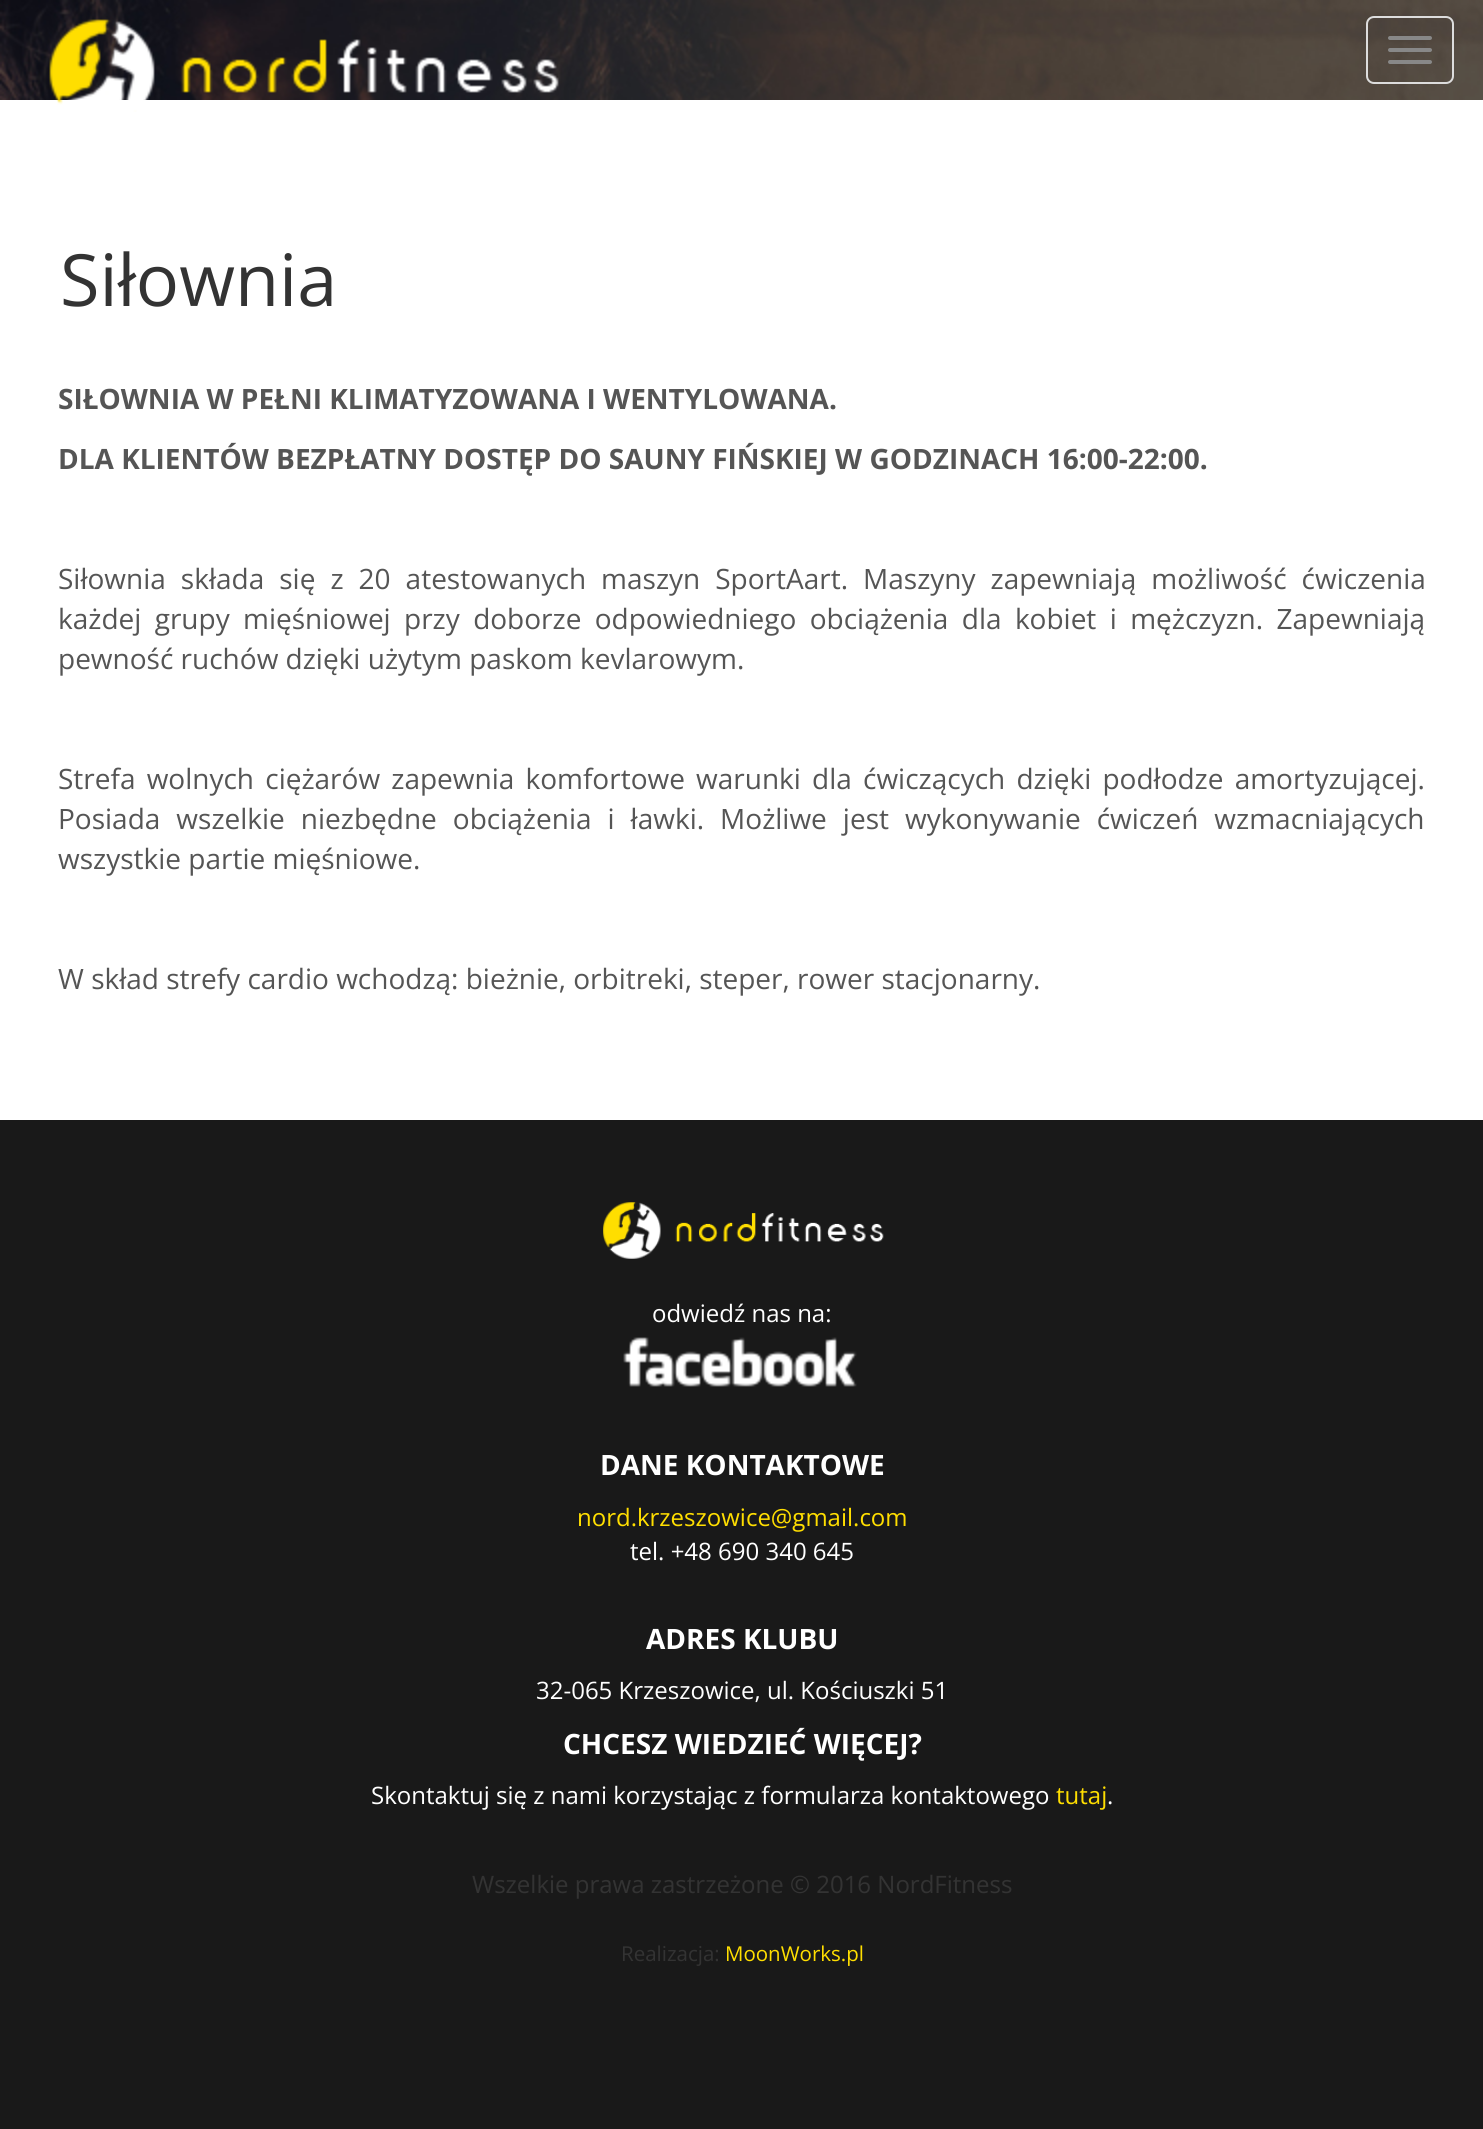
#include <cairo/cairo.h>
#include <math.h>
#include <stddef.h>

static cairo_t *cr;

static void use_color(int r, int g, int b) {
  cairo_set_source_rgb(cr, r / 255.0, g / 255.0, b / 255.0);
}

static void text(double x, double y, const char *s, const char *family, double size, int italic, int bold, int r, int g, int b) {
  cairo_select_font_face(cr, family, italic ? CAIRO_FONT_SLANT_ITALIC : CAIRO_FONT_SLANT_NORMAL,
    bold ? CAIRO_FONT_WEIGHT_BOLD : CAIRO_FONT_WEIGHT_NORMAL);
  cairo_set_font_size(cr, size);
  use_color(r, g, b);
  cairo_move_to(cr, x, y);
  cairo_show_text(cr, s);
}

static void spaced_text(double x, double y, const char *s, double letter, double word) {
  cairo_move_to(cr, x, y);
  while (*s) {
    char ch[5] = {0};
    int n = 0;
    do ch[n++] = *s++; while ((*s & 0xC0) == 0x80);
    cairo_show_text(cr, ch);
    cairo_rel_move_to(cr, letter + word * (*ch == ' '), 0);
  }
}

static void box(double x, double y, double w, double h, int r, int g, int b) {
  use_color(r, g, b);
  cairo_rectangle(cr, x, y, w, h);
  cairo_fill(cr);
}

static void round_rect(double x, double y, double w, double h, double r) {
  cairo_new_sub_path(cr);
  cairo_arc(cr, x + w - r, y + h - r, r, 0, M_PI / 2);
  cairo_arc(cr, x + r, y + h - r, r, M_PI / 2, M_PI);
  cairo_arc(cr, x + r, y + r, r, M_PI, 1.5 * M_PI);
  cairo_arc(cr, x + w - r, y + r, r, 1.5 * M_PI, 2 * M_PI);
  cairo_close_path(cr);
}

static void picture(const char *path, double x, double y, double w, double h) {
  cairo_surface_t *image = cairo_image_surface_create_from_png(path);
  cairo_save(cr);
  cairo_set_source_surface(cr, image, x, y);
  cairo_rectangle(cr, x, y, w, h);
  cairo_fill(cr);
  cairo_restore(cr);
  cairo_surface_destroy(image);
}

static void draw(void) {
  use_color(25, 25, 25);
  cairo_paint(cr);
  picture("img_01.png", 0, 0, 1483, 100);
  box(0, 100, 1483, 1020, 255, 255, 255);
  picture("img_02.png", 49, 19, 510, 93);
  round_rect(1367, 17, 86, 66, 7);
  use_color(221, 221, 221);
  cairo_stroke(cr);
  use_color(136, 136, 136);
  round_rect(1388, 36, 44, 4, 2);
  cairo_fill(cr);
  round_rect(1388, 48, 44, 4, 2);
  cairo_fill(cr);
  round_rect(1388, 60, 44, 4, 2);
  cairo_fill(cr);
  picture("img_03.png", 603, 1202, 281, 57);
  picture("img_04.png", 623, 1337, 234, 50);
  text(60, 306, "Siłownia", "Open Sans", 72, 0, 0, 51, 51, 51);
  text(58, 409, "SIŁOWNIA W PEŁNI KLIMATYZOWANA I WENTYLOWANA.", "Open Sans", 28, 0, 1, 85, 85, 85);
  text(58, 469, "DLA KLIENTÓW BEZPŁATNY DOSTĘP DO SAUNY FIŃSKIEJ W GODZINACH 16:00-22:00.", "Open Sans", 28, 0, 1, 85, 85, 85);
  cairo_select_font_face(cr, "Open Sans", CAIRO_FONT_SLANT_NORMAL, CAIRO_FONT_WEIGHT_NORMAL);
  spaced_text(58, 589, "Siłownia składa się z 20 atestowanych maszyn SportAart. Maszyny zapewniają możliwość ćwiczenia", 0, 7.75);
  spaced_text(58, 629, "każdej grupy mięśniowej przy doborze odpowiedniego obciążenia dla kobiet i mężczyzn. Zapewniają", 0, 6.1);
  text(58, 669, "pewność ruchów dzięki użytym paskom kevlarowym.", "Open Sans", 28, 0, 0, 85, 85, 85);
  spaced_text(58, 789, "Strefa wolnych ciężarów zapewnia komfortowe warunki dla ćwiczących dzięki podłodze amortyzującej.", 0, 3.9);
  spaced_text(58, 829, "Posiada wszelkie niezbędne obciążenia i ławki. Możliwe jest wykonywanie ćwiczeń wzmacniających", 0, 8.75);
  text(58, 869, "wszystkie partie mięśniowe.", "Open Sans", 28, 0, 0, 85, 85, 85);
  text(58, 989, "W skład strefy cardio wchodzą: bieżnie, orbitreki, steper, rower stacjonarny.", "Open Sans", 28, 0, 0, 85, 85, 85);
  text(652, 1322, "odwiedź nas na:", "Open Sans", 24, 0, 0, 255, 255, 255);
  text(600, 1475, "DANE KONTAKTOWE", "Open Sans", 28, 0, 1, 255, 255, 255);
  text(577, 1526, "nord.krzeszowice@gmail.com", "Open Sans", 24, 0, 0, 255, 222, 0);
  text(630, 1560, "tel. +48 690 340 645", "Open Sans", 24, 0, 0, 255, 255, 255);
  text(646, 1649, "ADRES KLUBU", "Open Sans", 28, 0, 1, 255, 255, 255);
  text(536, 1699, "32-065 Krzeszowice, ul. Kościuszki 51", "Open Sans", 24, 0, 0, 255, 255, 255);
  text(563, 1754, "CHCESZ WIEDZIEĆ WIĘCEJ?", "Open Sans", 28, 0, 1, 255, 255, 255);
  text(371, 1804, "Skontaktuj się z nami korzystając z formularza kontaktowego", "Open Sans", 24, 0, 0, 255, 255, 255);
  text(1056, 1804, "tutaj", "Open Sans", 24, 0, 0, 255, 222, 0);
  text(1107, 1804, ".", "Open Sans", 24, 0, 0, 255, 255, 255);
  text(472, 1893, "Wszelkie prawa zastrzeżone © 2016 NordFitness", "Open Sans", 24, 0, 0, 51, 51, 51);
  text(621, 1961, "Realizacja:", "Open Sans", 20.5, 0, 0, 51, 51, 51);
  text(725, 1961, "MoonWorks.pl", "Open Sans", 20.5, 0, 0, 255, 222, 0);
}

int main(void) {
  cairo_surface_t *surface = cairo_image_surface_create(CAIRO_FORMAT_RGB24, 1483, 2129);
  cr = cairo_create(surface);
  cairo_font_options_t *options = cairo_font_options_create();
  cairo_font_options_set_hint_metrics(options, CAIRO_HINT_METRICS_OFF);
  cairo_font_options_set_hint_style(options, CAIRO_HINT_STYLE_NONE);
  cairo_set_font_options(cr, options);
  cairo_set_miter_limit(cr, 4);
  draw();
  cairo_surface_write_to_png(surface, "out.png");
  cairo_font_options_destroy(options);
  cairo_destroy(cr);
  cairo_surface_destroy(surface);
  return 0;
}
